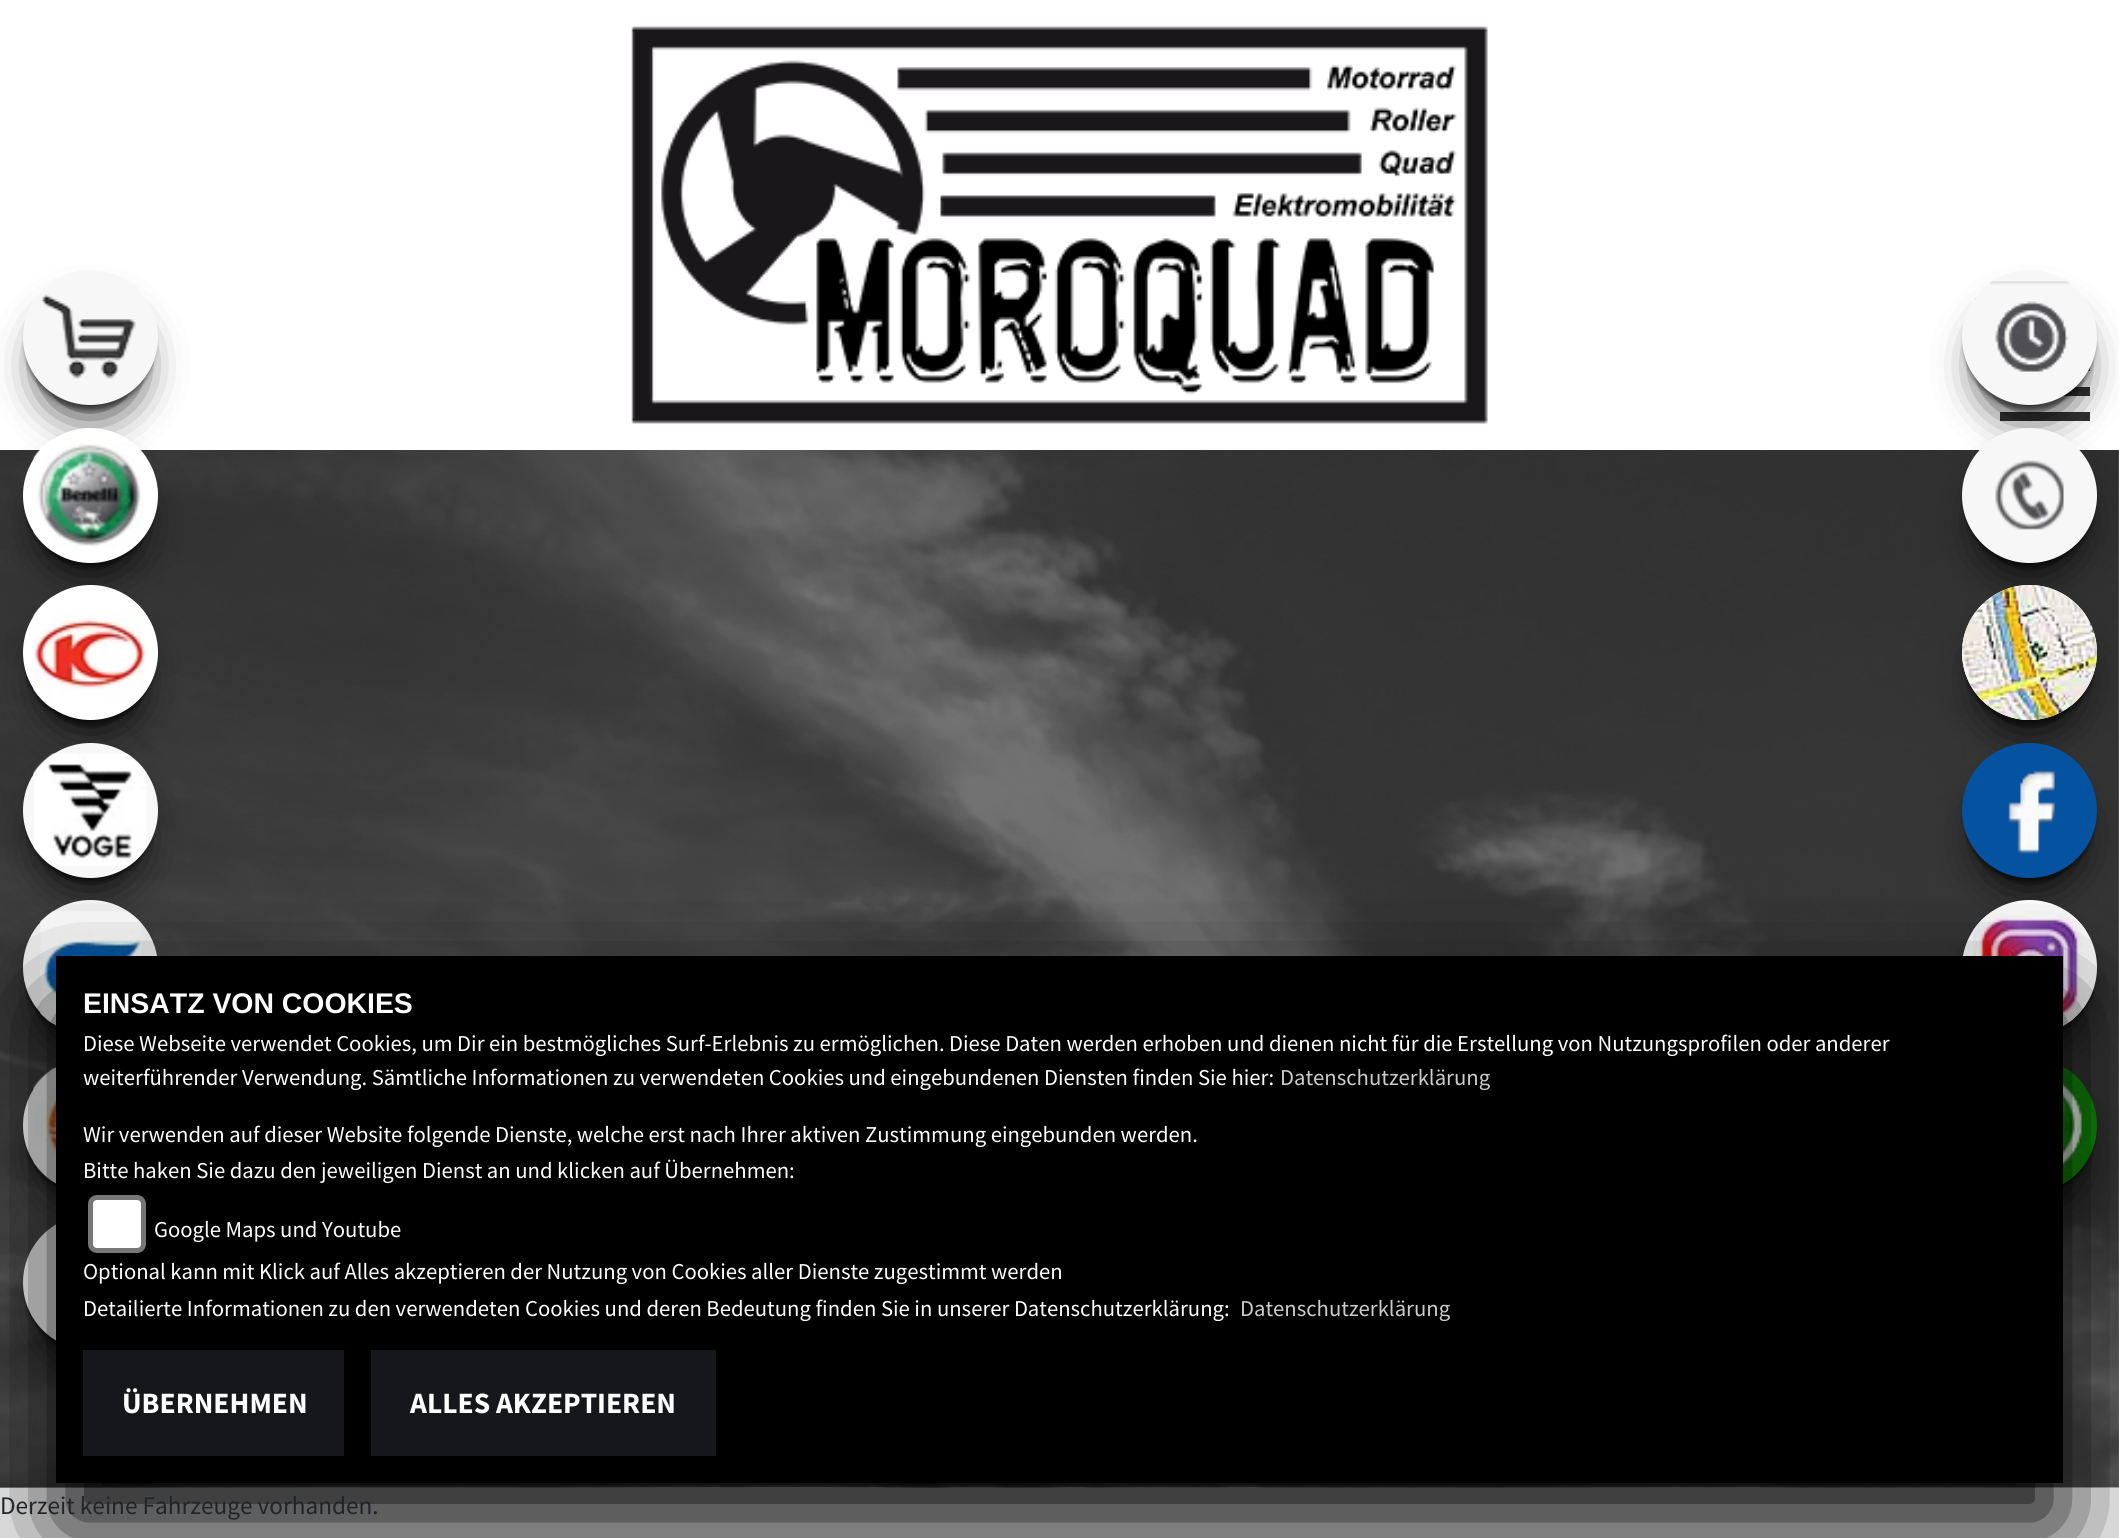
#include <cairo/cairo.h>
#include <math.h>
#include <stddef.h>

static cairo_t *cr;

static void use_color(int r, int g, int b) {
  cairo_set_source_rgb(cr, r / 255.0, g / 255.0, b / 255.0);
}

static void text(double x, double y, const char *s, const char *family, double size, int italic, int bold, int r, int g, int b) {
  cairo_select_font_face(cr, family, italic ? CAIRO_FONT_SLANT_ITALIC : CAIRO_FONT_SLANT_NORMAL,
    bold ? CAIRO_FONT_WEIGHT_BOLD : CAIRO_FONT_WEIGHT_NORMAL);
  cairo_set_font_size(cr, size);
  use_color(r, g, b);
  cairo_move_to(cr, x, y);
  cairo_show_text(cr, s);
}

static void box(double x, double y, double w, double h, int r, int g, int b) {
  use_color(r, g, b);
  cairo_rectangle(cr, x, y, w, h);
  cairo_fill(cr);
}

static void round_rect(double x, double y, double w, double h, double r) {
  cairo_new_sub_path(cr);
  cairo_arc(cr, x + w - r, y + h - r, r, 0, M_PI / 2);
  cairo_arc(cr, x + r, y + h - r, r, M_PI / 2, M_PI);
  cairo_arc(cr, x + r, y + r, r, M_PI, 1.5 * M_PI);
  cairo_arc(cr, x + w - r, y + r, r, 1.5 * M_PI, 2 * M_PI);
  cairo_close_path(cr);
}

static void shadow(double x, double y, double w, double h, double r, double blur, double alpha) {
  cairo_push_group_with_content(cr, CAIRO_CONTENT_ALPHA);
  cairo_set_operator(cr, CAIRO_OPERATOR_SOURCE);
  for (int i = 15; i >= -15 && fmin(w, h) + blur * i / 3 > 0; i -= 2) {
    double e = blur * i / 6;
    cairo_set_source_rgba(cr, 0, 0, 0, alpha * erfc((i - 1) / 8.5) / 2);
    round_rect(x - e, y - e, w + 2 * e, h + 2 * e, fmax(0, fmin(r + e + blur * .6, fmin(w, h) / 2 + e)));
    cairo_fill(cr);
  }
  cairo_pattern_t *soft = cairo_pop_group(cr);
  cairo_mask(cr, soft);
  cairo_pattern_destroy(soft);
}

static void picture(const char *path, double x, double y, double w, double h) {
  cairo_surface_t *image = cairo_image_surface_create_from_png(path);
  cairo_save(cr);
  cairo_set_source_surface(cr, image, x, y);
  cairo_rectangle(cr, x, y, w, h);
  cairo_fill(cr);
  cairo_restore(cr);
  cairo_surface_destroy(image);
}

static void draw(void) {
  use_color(255, 255, 255);
  cairo_paint(cr);
  picture("img_14.png", 0, 450, 2119, 1038);
  use_color(0, 0, 0);
  shadow(45, 320, 90, 90, 45, 22.5, 1);
  shadow(25, 279, 130, 131, 65, 2, 0.5);
  use_color(247, 247, 247);
  cairo_arc(cr, 90.5, 337.5, 67.5, 0, 2 * M_PI);
  cairo_fill(cr);
  picture("img_01.png", 41, 294, 95, 85);
  use_color(0, 0, 0);
  shadow(45, 477, 90, 90, 45, 22.5, 1);
  shadow(25, 437, 130, 130, 65, 2, 0.5);
  use_color(255, 255, 255);
  cairo_arc(cr, 90.5, 495.5, 67.5, 0, 2 * M_PI);
  cairo_fill(cr);
  picture("img_02.png", 33, 439, 114, 113);
  use_color(0, 0, 0);
  shadow(45, 635, 90, 90, 45, 22.5, 1);
  shadow(25, 594, 130, 131, 65, 2, 0.5);
  use_color(255, 255, 255);
  cairo_arc(cr, 90.5, 652.5, 67.5, 0, 2 * M_PI);
  cairo_fill(cr);
  picture("img_03.png", 33, 596, 114, 113);
  use_color(0, 0, 0);
  shadow(45, 792, 90, 90, 45, 22.5, 1);
  shadow(25, 752, 130, 130, 65, 2, 0.5);
  use_color(247, 247, 247);
  cairo_arc(cr, 90.5, 810.5, 67.5, 0, 2 * M_PI);
  cairo_fill(cr);
  picture("img_04.png", 33, 753, 114, 114);
  use_color(0, 0, 0);
  shadow(45, 950, 90, 90, 45, 22.5, 1);
  shadow(25, 909, 130, 131, 65, 2, 0.5);
  use_color(247, 247, 247);
  cairo_arc(cr, 90.5, 967.5, 67.5, 0, 2 * M_PI);
  cairo_fill(cr);
  picture("img_05.png", 40, 911, 103, 113);
  use_color(0, 0, 0);
  shadow(45, 1107, 90, 90, 45, 22.5, 1);
  shadow(25, 1067, 130, 130, 65, 2, 0.5);
  use_color(255, 255, 255);
  cairo_arc(cr, 90.5, 1125.5, 67.5, 0, 2 * M_PI);
  cairo_fill(cr);
  picture("img_06.png", 33, 1068, 23, 114);
  use_color(0, 0, 0);
  shadow(45, 1265, 90, 90, 45, 22.5, 1);
  shadow(25, 1224, 130, 131, 65, 2, 0.5);
  use_color(255, 255, 255);
  cairo_arc(cr, 90.5, 1282.5, 67.5, 0, 2 * M_PI);
  cairo_fill(cr);
  box(2088, 367, 2, 4, 51, 51, 51);
  box(2063, 387, 27, 9, 51, 51, 51);
  box(2000, 412, 90, 9, 51, 51, 51);
  use_color(0, 0, 0);
  shadow(1985, 320, 90, 90, 45, 22.5, 1);
  shadow(1964, 279, 131, 131, 65.5, 2, 0.5);
  use_color(247, 247, 247);
  cairo_arc(cr, 2029.5, 337.5, 67.5, 0, 2 * M_PI);
  cairo_fill(cr);
  picture("img_07.png", 1974, 281, 96, 91);
  use_color(0, 0, 0);
  shadow(1985, 477, 90, 90, 45, 22.5, 1);
  shadow(1964, 437, 131, 130, 65, 2, 0.5);
  use_color(247, 247, 247);
  cairo_arc(cr, 2029.5, 495.5, 67.5, 0, 2 * M_PI);
  cairo_fill(cr);
  picture("img_08.png", 1995, 460, 69, 70);
  use_color(0, 0, 0);
  shadow(1985, 635, 90, 90, 45, 22.5, 1);
  shadow(1964, 594, 131, 131, 65.5, 2, 0.5);
  use_color(247, 247, 247);
  cairo_arc(cr, 2029.5, 652.5, 67.5, 0, 2 * M_PI);
  cairo_fill(cr);
  picture("img_09.png", 1962, 585, 135, 135);
  use_color(0, 0, 0);
  shadow(1985, 792, 90, 90, 45, 22.5, 1);
  shadow(1964, 752, 131, 130, 65, 2, 0.5);
  use_color(5, 82, 160);
  cairo_arc(cr, 2029.5, 810.5, 67.5, 0, 2 * M_PI);
  cairo_fill(cr);
  picture("img_10.png", 2008, 770, 47, 84);
  use_color(0, 0, 0);
  shadow(1985, 950, 90, 90, 45, 22.5, 1);
  shadow(1964, 909, 131, 131, 65.5, 2, 0.5);
  use_color(255, 255, 255);
  cairo_arc(cr, 2029.5, 967.5, 67.5, 0, 2 * M_PI);
  cairo_fill(cr);
  picture("img_11.png", 1973, 911, 113, 113);
  use_color(0, 0, 0);
  shadow(1985, 1107, 90, 90, 45, 22.5, 1);
  shadow(1964, 1067, 131, 130, 65, 2, 0.5);
  use_color(16, 142, 9);
  cairo_arc(cr, 2029.5, 1125.5, 67.5, 0, 2 * M_PI);
  cairo_fill(cr);
  picture("img_12.png", 2063, 1068, 23, 114);
  cairo_save(cr);
  cairo_rectangle(cr, 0, 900, 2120, 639);
  cairo_clip(cr);
  use_color(0, 0, 0);
  shadow(56, 1006, 2007, 526, 0, 56, 1);
  cairo_restore(cr);
  box(56, 956, 2007, 527, 0, 0, 0);
  use_color(255, 255, 255);
  round_rect(90.5, 1197.5, 53, 53, 6.5);
  cairo_fill_preserve(cr);
  use_color(118, 118, 118);
  cairo_set_line_width(cr, 5);
  cairo_stroke(cr);
  box(83, 1350, 261, 106, 22, 23, 26);
  box(371, 1350, 345, 106, 22, 23, 26);
  picture("img_13.png", 631, 26, 857, 398);
  text(83, 1013, "EINSATZ VON COOKIES", "Liberation Sans", 28.4, 0, 1, 255, 255, 255);
  text(83, 1051, "Diese Webseite verwendet Cookies, um Dir ein bestmögliches Surf-Erlebnis zu ermöglichen. Diese Daten werden erhoben und dienen nicht für die Erstellung von Nutzungsprofilen oder anderer", "Source Sans Pro", 22.68, 0, 0, 255, 255, 255);
  text(83, 1085, "weiterführender Verwendung. Sämtliche Informationen zu verwendeten Cookies und eingebundenen Diensten finden Sie hier:", "Source Sans Pro", 22.68, 0, 0, 255, 255, 255);
  text(1280, 1085, "Datenschutzerklärung", "Source Sans Pro", 22.68, 0, 0, 204, 204, 204);
  text(83, 1142, "Wir verwenden auf dieser Website folgende Dienste, welche erst nach Ihrer aktiven Zustimmung eingebunden werden.", "Source Sans Pro", 22.68, 0, 0, 255, 255, 255);
  text(83, 1178, "Bitte haken Sie dazu den jeweiligen Dienst an und klicken auf Übernehmen:", "Source Sans Pro", 22.68, 0, 0, 255, 255, 255);
  text(154, 1237, "Google Maps und Youtube", "Source Sans Pro", 22.68, 0, 0, 255, 255, 255);
  text(83, 1279, "Optional kann mit Klick auf Alles akzeptieren der Nutzung von Cookies aller Dienste zugestimmt werden", "Source Sans Pro", 22.68, 0, 0, 255, 255, 255);
  text(83, 1316, "Detailierte Informationen zu den verwendeten Cookies und deren Bedeutung finden Sie in unserer Datenschutzerklärung:", "Source Sans Pro", 22.68, 0, 0, 255, 255, 255);
  text(1240, 1316, "Datenschutzerklärung", "Source Sans Pro", 22.68, 0, 0, 204, 204, 204);
  text(122, 1413, "ÜBERNEHMEN", "Source Sans Pro", 29.5, 0, 1, 255, 255, 255);
  text(410, 1413, "ALLES AKZEPTIEREN", "Source Sans Pro", 29.5, 0, 1, 255, 255, 255);
  text(0, 1514, "Derzeit keine Fahrzeuge vorhanden.", "Source Sans Pro", 25.25, 0, 0, 33, 37, 41);
}

int main(void) {
  cairo_surface_t *surface = cairo_image_surface_create(CAIRO_FORMAT_RGB24, 2119, 1538);
  cr = cairo_create(surface);
  cairo_font_options_t *options = cairo_font_options_create();
  cairo_font_options_set_hint_metrics(options, CAIRO_HINT_METRICS_OFF);
  cairo_font_options_set_hint_style(options, CAIRO_HINT_STYLE_NONE);
  cairo_set_font_options(cr, options);
  cairo_set_miter_limit(cr, 4);
  draw();
  cairo_surface_write_to_png(surface, "out.png");
  cairo_font_options_destroy(options);
  cairo_destroy(cr);
  cairo_surface_destroy(surface);
  return 0;
}
